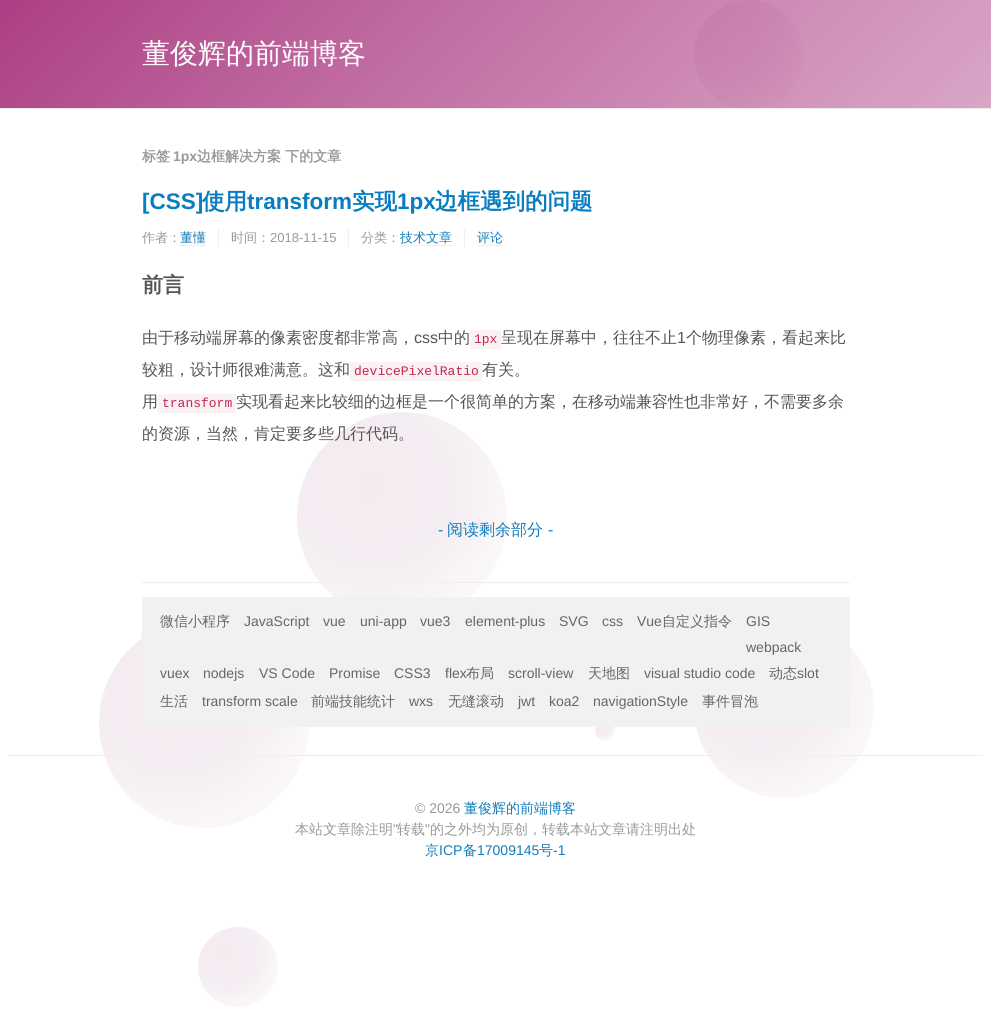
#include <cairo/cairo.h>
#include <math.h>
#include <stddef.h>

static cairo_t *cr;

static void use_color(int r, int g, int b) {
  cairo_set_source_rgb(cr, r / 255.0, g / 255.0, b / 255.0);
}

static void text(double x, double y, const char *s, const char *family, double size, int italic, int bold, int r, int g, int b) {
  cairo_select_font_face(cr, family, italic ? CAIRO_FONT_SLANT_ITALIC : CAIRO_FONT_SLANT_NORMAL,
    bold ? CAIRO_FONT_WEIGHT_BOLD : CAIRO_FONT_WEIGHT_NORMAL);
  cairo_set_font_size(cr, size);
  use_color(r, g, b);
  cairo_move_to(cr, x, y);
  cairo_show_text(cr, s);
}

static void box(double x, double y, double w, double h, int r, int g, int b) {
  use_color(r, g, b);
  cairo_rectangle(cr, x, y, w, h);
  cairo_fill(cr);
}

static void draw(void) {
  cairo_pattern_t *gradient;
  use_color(255, 255, 255);
  cairo_paint(cr);
  gradient = cairo_pattern_create_radial(733, 39, 0, 733, 39, 101);
  cairo_pattern_add_color_stop_rgba(gradient, 0, 0.965, 0.918, 0.945, 1);
  cairo_pattern_add_color_stop_rgba(gradient, 0.4, 0.957, 0.929, 0.949, 1);
  cairo_pattern_add_color_stop_rgba(gradient, 1, 1, 1, 1, 1);
  cairo_set_source(cr, gradient);
  cairo_pattern_destroy(gradient);
  cairo_arc(cr, 749, 55, 55, 0, 2 * M_PI);
  cairo_fill(cr);
  gradient = cairo_pattern_create_linear(221, -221, 770, 329);
  cairo_pattern_add_color_stop_rgba(gradient, 0, 0.639, 0.161, 0.463, 0.9);
  cairo_pattern_add_color_stop_rgba(gradient, 1, 0.702, 0.302, 0.553, 0.5);
  cairo_set_source(cr, gradient);
  cairo_pattern_destroy(gradient);
  cairo_rectangle(cr, 0, 0, 991, 108);
  cairo_fill(cr);
  box(0, 108, 991, 1, 238, 238, 238);
  gradient = cairo_pattern_create_radial(173, 692, 0, 173, 692, 193);
  cairo_pattern_add_color_stop_rgba(gradient, 0, 0.965, 0.918, 0.945, 1);
  cairo_pattern_add_color_stop_rgba(gradient, 0.4, 0.957, 0.929, 0.949, 1);
  cairo_pattern_add_color_stop_rgba(gradient, 1, 1, 1, 1, 1);
  cairo_set_source(cr, gradient);
  cairo_pattern_destroy(gradient);
  cairo_arc(cr, 204, 723, 105, 0, 2 * M_PI);
  cairo_fill(cr);
  gradient = cairo_pattern_create_radial(371, 486, 0, 371, 486, 193);
  cairo_pattern_add_color_stop_rgba(gradient, 0, 0.965, 0.918, 0.945, 1);
  cairo_pattern_add_color_stop_rgba(gradient, 0.4, 0.957, 0.929, 0.949, 1);
  cairo_pattern_add_color_stop_rgba(gradient, 1, 1, 1, 1, 1);
  cairo_set_source(cr, gradient);
  cairo_pattern_destroy(gradient);
  cairo_arc(cr, 402, 517, 105, 0, 2 * M_PI);
  cairo_fill(cr);
  box(142, 582, 708, 1, 238, 238, 238);
  box(180, 245, 26, 1, 238, 238, 238);
  box(218, 229, 1, 18, 238, 238, 238);
  box(348, 229, 1, 18, 238, 238, 238);
  box(400, 245, 52, 1, 238, 238, 238);
  box(464, 229, 1, 18, 238, 238, 238);
  box(477, 245, 25, 1, 238, 238, 238);
  box(470, 330, 31, 19, 249, 242, 244);
  box(350, 362, 132, 19, 249, 242, 244);
  box(158, 394, 78, 19, 249, 242, 244);
  gradient = cairo_pattern_create_radial(602, 728, 0, 602, 728, 18);
  cairo_pattern_add_color_stop_rgba(gradient, 0, 0.965, 0.918, 0.945, 1);
  cairo_pattern_add_color_stop_rgba(gradient, 0.4, 0.957, 0.929, 0.949, 1);
  cairo_pattern_add_color_stop_rgba(gradient, 1, 1, 1, 1, 1);
  cairo_set_source(cr, gradient);
  cairo_pattern_destroy(gradient);
  cairo_arc(cr, 605, 731, 10, 0, 2 * M_PI);
  cairo_fill(cr);
  gradient = cairo_pattern_create_radial(757, 681, 0, 757, 681, 165);
  cairo_pattern_add_color_stop_rgba(gradient, 0, 0.965, 0.918, 0.945, 1);
  cairo_pattern_add_color_stop_rgba(gradient, 0.4, 0.957, 0.929, 0.949, 1);
  cairo_pattern_add_color_stop_rgba(gradient, 1, 1, 1, 1, 1);
  cairo_set_source(cr, gradient);
  cairo_pattern_destroy(gradient);
  cairo_arc(cr, 784, 708, 90, 0, 2 * M_PI);
  cairo_fill(cr);
  box(142, 597, 708, 130, 241, 241, 241);
  box(8, 755, 975, 1, 238, 238, 238);
  gradient = cairo_pattern_create_radial(226, 955, 0, 226, 955, 74);
  cairo_pattern_add_color_stop_rgba(gradient, 0, 0.965, 0.918, 0.945, 1);
  cairo_pattern_add_color_stop_rgba(gradient, 0.4, 0.957, 0.929, 0.949, 1);
  cairo_pattern_add_color_stop_rgba(gradient, 1, 1, 1, 1, 1);
  cairo_set_source(cr, gradient);
  cairo_pattern_destroy(gradient);
  cairo_arc(cr, 238, 967, 40, 0, 2 * M_PI);
  cairo_fill(cr);
  text(142, 63, "董俊辉的前端博客", "WenQuanYi Zen Hei Medium", 28, 0, 0, 255, 255, 255);
  text(142, 161, "标签", "WenQuanYi Zen Hei", 14, 0, 1, 153, 153, 153);
  text(173, 161, "1px", "Liberation Sans", 14, 0, 1, 153, 153, 153);
  text(197, 161, "边框解决方案 下的文章", "WenQuanYi Zen Hei", 14, 0, 1, 153, 153, 153);
  text(142, 209, "[CSS]", "Liberation Sans", 22.5, 0, 1, 8, 125, 193);
  text(202, 209, "使用", "WenQuanYi Zen Hei", 22.5, 0, 1, 8, 125, 193);
  text(247, 209, "transform", "Liberation Sans", 22.5, 0, 1, 8, 125, 193);
  text(352, 209, "实现", "WenQuanYi Zen Hei", 22.5, 0, 1, 8, 125, 193);
  text(397, 209, "1px", "Liberation Sans", 22.5, 0, 1, 8, 125, 193);
  text(435, 209, "边框遇到的问题", "WenQuanYi Zen Hei", 22.5, 0, 1, 8, 125, 193);
  text(142, 242, "作者：", "WenQuanYi Zen Hei Medium", 13, 0, 0, 153, 153, 153);
  text(180, 242, "董懂", "WenQuanYi Zen Hei Medium", 13, 0, 0, 16, 125, 188);
  text(231, 242, "时间：", "WenQuanYi Zen Hei Medium", 13, 0, 0, 153, 153, 153);
  text(270, 242, "2018-11-15", "Liberation Sans", 13, 0, 0, 153, 153, 153);
  text(361, 242, "分类：", "WenQuanYi Zen Hei Medium", 13, 0, 0, 153, 153, 153);
  text(400, 242, "技术文章", "WenQuanYi Zen Hei Medium", 13, 0, 0, 16, 125, 188);
  text(477, 242, "评论", "WenQuanYi Zen Hei Medium", 13, 0, 0, 16, 125, 188);
  text(142, 292, "前言", "WenQuanYi Zen Hei", 21, 0, 1, 85, 85, 85);
  text(142, 343, "由于移动端屏幕的像素密度都非常高，", "WenQuanYi Zen Hei Medium", 16, 0, 0, 85, 85, 85);
  text(414, 343, "css", "Liberation Sans", 16, 0, 0, 85, 85, 85);
  text(438, 343, "中的", "WenQuanYi Zen Hei Medium", 16, 0, 0, 85, 85, 85);
  text(474, 343, "1px", "Liberation Mono", 13, 0, 0, 199, 37, 78);
  text(501, 343, "呈现在屏幕中，往往不止", "WenQuanYi Zen Hei Medium", 16, 0, 0, 85, 85, 85);
  text(677, 343, "1", "Liberation Sans", 16, 0, 0, 85, 85, 85);
  text(686, 343, "个物理像素，看起来比", "WenQuanYi Zen Hei Medium", 16, 0, 0, 85, 85, 85);
  text(142, 375, "较粗，设计师很难满意。这和", "WenQuanYi Zen Hei Medium", 16, 0, 0, 85, 85, 85);
  text(354, 375, "devicePixelRatio", "Liberation Mono", 13, 0, 0, 199, 37, 78);
  text(482, 375, "有关。", "WenQuanYi Zen Hei Medium", 16, 0, 0, 85, 85, 85);
  text(142, 407, "用", "WenQuanYi Zen Hei Medium", 16, 0, 0, 85, 85, 85);
  text(162, 407, "transform", "Liberation Mono", 13, 0, 0, 199, 37, 78);
  text(236, 407, "实现看起来比较细的边框是一个很简单的方案，在移动端兼容性也非常好，不需要多余", "WenQuanYi Zen Hei Medium", 16, 0, 0, 85, 85, 85);
  text(142, 439, "的资源，当然，肯定要多些几行代码。", "WenQuanYi Zen Hei Medium", 16, 0, 0, 85, 85, 85);
  text(438, 535, "-", "Liberation Sans", 16, 0, 0, 16, 125, 188);
  text(447, 535, "阅读剩余部分", "WenQuanYi Zen Hei Medium", 16, 0, 0, 16, 125, 188);
  text(548, 535, "-", "Liberation Sans", 16, 0, 0, 16, 125, 188);
  text(160, 626, "微信小程序", "WenQuanYi Zen Hei Medium", 14, 0, 0, 102, 102, 102);
  text(244, 626, "JavaScript", "Liberation Sans", 14, 0, 0, 102, 102, 102);
  text(323, 626, "vue", "Liberation Sans", 14, 0, 0, 102, 102, 102);
  text(360, 626, "uni-app", "Liberation Sans", 14, 0, 0, 102, 102, 102);
  text(420, 626, "vue3", "Liberation Sans", 14, 0, 0, 102, 102, 102);
  text(465, 626, "element-plus", "Liberation Sans", 14, 0, 0, 102, 102, 102);
  text(559, 626, "SVG", "Liberation Sans", 14, 0, 0, 102, 102, 102);
  text(602, 626, "css", "Liberation Sans", 14, 0, 0, 102, 102, 102);
  text(637, 626, "Vue", "Liberation Sans", 14, 0, 0, 102, 102, 102);
  text(662, 626, "自定义指令", "WenQuanYi Zen Hei Medium", 14, 0, 0, 102, 102, 102);
  text(746, 626, "GIS", "Liberation Sans", 14, 0, 0, 102, 102, 102);
  text(746, 652, "webpack", "Liberation Sans", 14, 0, 0, 102, 102, 102);
  text(160, 678, "vuex", "Liberation Sans", 14, 0, 0, 102, 102, 102);
  text(203, 678, "nodejs", "Liberation Sans", 14, 0, 0, 102, 102, 102);
  text(259, 678, "VS Code", "Liberation Sans", 14, 0, 0, 102, 102, 102);
  text(329, 678, "Promise", "Liberation Sans", 14, 0, 0, 102, 102, 102);
  text(394, 678, "CSS3", "Liberation Sans", 14, 0, 0, 102, 102, 102);
  text(445, 678, "flex", "Liberation Sans", 14, 0, 0, 102, 102, 102);
  text(466, 678, "布局", "WenQuanYi Zen Hei Medium", 14, 0, 0, 102, 102, 102);
  text(508, 678, "scroll-view", "Liberation Sans", 14, 0, 0, 102, 102, 102);
  text(588, 678, "天地图", "WenQuanYi Zen Hei Medium", 14, 0, 0, 102, 102, 102);
  text(644, 678, "visual studio code", "Liberation Sans", 14, 0, 0, 102, 102, 102);
  text(769, 678, "动态", "WenQuanYi Zen Hei Medium", 14, 0, 0, 102, 102, 102);
  text(797, 678, "slot", "Liberation Sans", 14, 0, 0, 102, 102, 102);
  text(160, 706, "生活", "WenQuanYi Zen Hei Medium", 14, 0, 0, 102, 102, 102);
  text(202, 706, "transform scale", "Liberation Sans", 14, 0, 0, 102, 102, 102);
  text(311, 706, "前端技能统计", "WenQuanYi Zen Hei Medium", 14, 0, 0, 102, 102, 102);
  text(409, 706, "wxs", "Liberation Sans", 14, 0, 0, 102, 102, 102);
  text(448, 706, "无缝滚动", "WenQuanYi Zen Hei Medium", 14, 0, 0, 102, 102, 102);
  text(518, 706, "jwt", "Liberation Sans", 14, 0, 0, 102, 102, 102);
  text(549, 706, "koa2", "Liberation Sans", 14, 0, 0, 102, 102, 102);
  text(593, 706, "navigationStyle", "Liberation Sans", 14, 0, 0, 102, 102, 102);
  text(702, 706, "事件冒泡", "WenQuanYi Zen Hei Medium", 14, 0, 0, 102, 102, 102);
  text(415, 813, "© 2026", "Liberation Sans", 14, 0, 0, 153, 153, 153);
  text(464, 813, "董俊辉的前端博客", "WenQuanYi Zen Hei Medium", 14, 0, 0, 16, 125, 188);
  text(295, 834, "本站文章除注明", "WenQuanYi Zen Hei Medium", 14, 0, 0, 153, 153, 153);
  text(393, 834, "\"", "Liberation Sans", 14, 0, 0, 153, 153, 153);
  text(397, 834, "转载", "WenQuanYi Zen Hei Medium", 14, 0, 0, 153, 153, 153);
  text(425, 834, "\"", "Liberation Sans", 14, 0, 0, 153, 153, 153);
  text(430, 834, "的之外均为原创，转载本站文章请注明出处", "WenQuanYi Zen Hei Medium", 14, 0, 0, 153, 153, 153);
  text(425, 855, "京", "WenQuanYi Zen Hei Medium", 14, 0, 0, 16, 125, 188);
  text(439, 855, "ICP", "Liberation Sans", 14, 0, 0, 16, 125, 188);
  text(463, 855, "备", "WenQuanYi Zen Hei Medium", 14, 0, 0, 16, 125, 188);
  text(477, 855, "17009145", "Liberation Sans", 14, 0, 0, 16, 125, 188);
  text(539, 855, "号", "WenQuanYi Zen Hei Medium", 14, 0, 0, 16, 125, 188);
  text(553, 855, "-1", "Liberation Sans", 14, 0, 0, 16, 125, 188);
}

int main(void) {
  cairo_surface_t *surface = cairo_image_surface_create(CAIRO_FORMAT_RGB24, 991, 1030);
  cr = cairo_create(surface);
  cairo_font_options_t *options = cairo_font_options_create();
  cairo_font_options_set_hint_metrics(options, CAIRO_HINT_METRICS_OFF);
  cairo_font_options_set_hint_style(options, CAIRO_HINT_STYLE_NONE);
  cairo_set_font_options(cr, options);
  cairo_set_miter_limit(cr, 4);
  draw();
  cairo_surface_write_to_png(surface, "out.png");
  cairo_font_options_destroy(options);
  cairo_destroy(cr);
  cairo_surface_destroy(surface);
  return 0;
}
